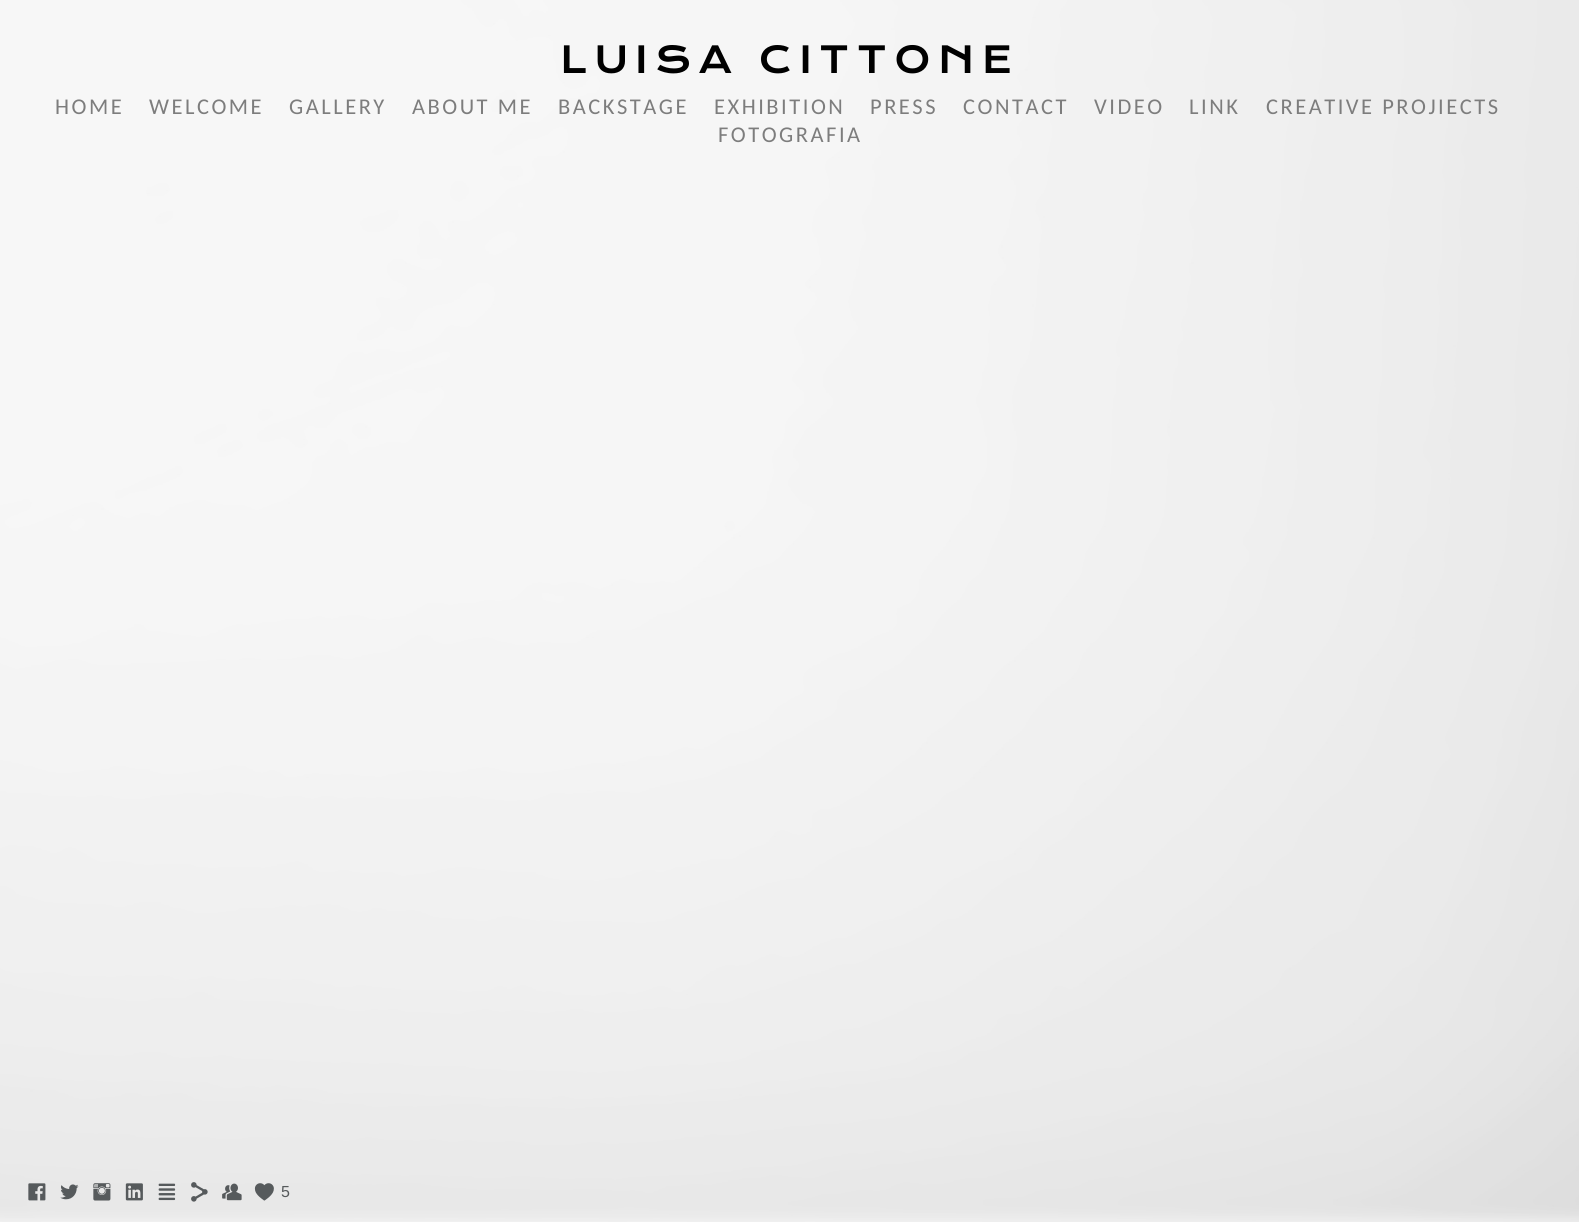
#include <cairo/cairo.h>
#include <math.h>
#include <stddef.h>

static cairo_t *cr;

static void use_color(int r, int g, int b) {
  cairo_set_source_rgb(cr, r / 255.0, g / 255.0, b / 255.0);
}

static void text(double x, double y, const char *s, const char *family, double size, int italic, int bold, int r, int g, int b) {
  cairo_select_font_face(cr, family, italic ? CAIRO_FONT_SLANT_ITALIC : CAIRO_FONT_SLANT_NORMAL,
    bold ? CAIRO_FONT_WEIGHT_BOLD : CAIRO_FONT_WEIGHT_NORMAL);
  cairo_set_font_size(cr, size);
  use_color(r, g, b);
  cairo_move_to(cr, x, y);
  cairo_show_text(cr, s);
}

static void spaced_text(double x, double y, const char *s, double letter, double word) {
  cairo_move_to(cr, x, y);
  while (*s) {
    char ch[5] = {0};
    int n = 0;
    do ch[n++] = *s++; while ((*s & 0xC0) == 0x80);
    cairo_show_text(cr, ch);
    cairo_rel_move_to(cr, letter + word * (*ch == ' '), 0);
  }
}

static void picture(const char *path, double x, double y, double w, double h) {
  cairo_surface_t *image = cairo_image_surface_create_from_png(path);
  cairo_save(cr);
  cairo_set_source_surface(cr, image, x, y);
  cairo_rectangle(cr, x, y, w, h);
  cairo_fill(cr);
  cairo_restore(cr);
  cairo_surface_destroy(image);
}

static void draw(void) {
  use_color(255, 255, 255);
  cairo_paint(cr);
  picture("img_01.png", 0, 0, 1579, 1222);
  picture("img_02.png", 28, 1183, 18, 18);
  picture("img_03.png", 60, 1184, 19, 16);
  picture("img_04.png", 93, 1183, 18, 18);
  picture("img_05.png", 125, 1183, 18, 18);
  picture("img_06.png", 158, 1183, 18, 18);
  picture("img_07.png", 191, 1182, 17, 20);
  picture("img_08.png", 222, 1183, 20, 18);
  picture("img_09.png", 254, 1183, 20, 18);
  cairo_select_font_face(cr, "Krona One", CAIRO_FONT_SLANT_NORMAL, CAIRO_FONT_WEIGHT_NORMAL);
  cairo_set_font_size(cr, 36.25);
  use_color(0, 0, 0);
  spaced_text(560, 73, "LUISA CITTONE", 7.5, 0);
  cairo_select_font_face(cr, "Carlito", CAIRO_FONT_SLANT_NORMAL, CAIRO_FONT_WEIGHT_NORMAL);
  cairo_set_font_size(cr, 22.5);
  use_color(125, 125, 125);
  spaced_text(55, 114, "HOME", 2.5, 0);
  spaced_text(149, 114, "WELCOME", 2.5, 0);
  spaced_text(289, 114, "GALLERY", 2.5, 0);
  spaced_text(412, 114, "ABOUT ME", 2.5, 0);
  spaced_text(558, 114, "BACKSTAGE", 2.5, 0);
  spaced_text(714, 114, "EXHIBITION", 2.5, 0);
  spaced_text(870, 114, "PRESS", 2.5, 0);
  spaced_text(963, 114, "CONTACT", 2.5, 0);
  spaced_text(1094, 114, "VIDEO", 2.5, 0);
  spaced_text(1189, 114, "LINK", 2.5, 0);
  spaced_text(1266, 114, "CREATIVE PROJIECTS", 2.5, 0);
  spaced_text(718, 142, "FOTOGRAFIA", 2.5, 0);
  text(281, 1197, "5", "Liberation Sans", 16, 0, 0, 86, 90, 92);
}

int main(void) {
  cairo_surface_t *surface = cairo_image_surface_create(CAIRO_FORMAT_RGB24, 1579, 1222);
  cr = cairo_create(surface);
  cairo_font_options_t *options = cairo_font_options_create();
  cairo_font_options_set_hint_metrics(options, CAIRO_HINT_METRICS_OFF);
  cairo_font_options_set_hint_style(options, CAIRO_HINT_STYLE_NONE);
  cairo_set_font_options(cr, options);
  cairo_set_miter_limit(cr, 4);
  draw();
  cairo_surface_write_to_png(surface, "out.png");
  cairo_font_options_destroy(options);
  cairo_destroy(cr);
  cairo_surface_destroy(surface);
  return 0;
}
